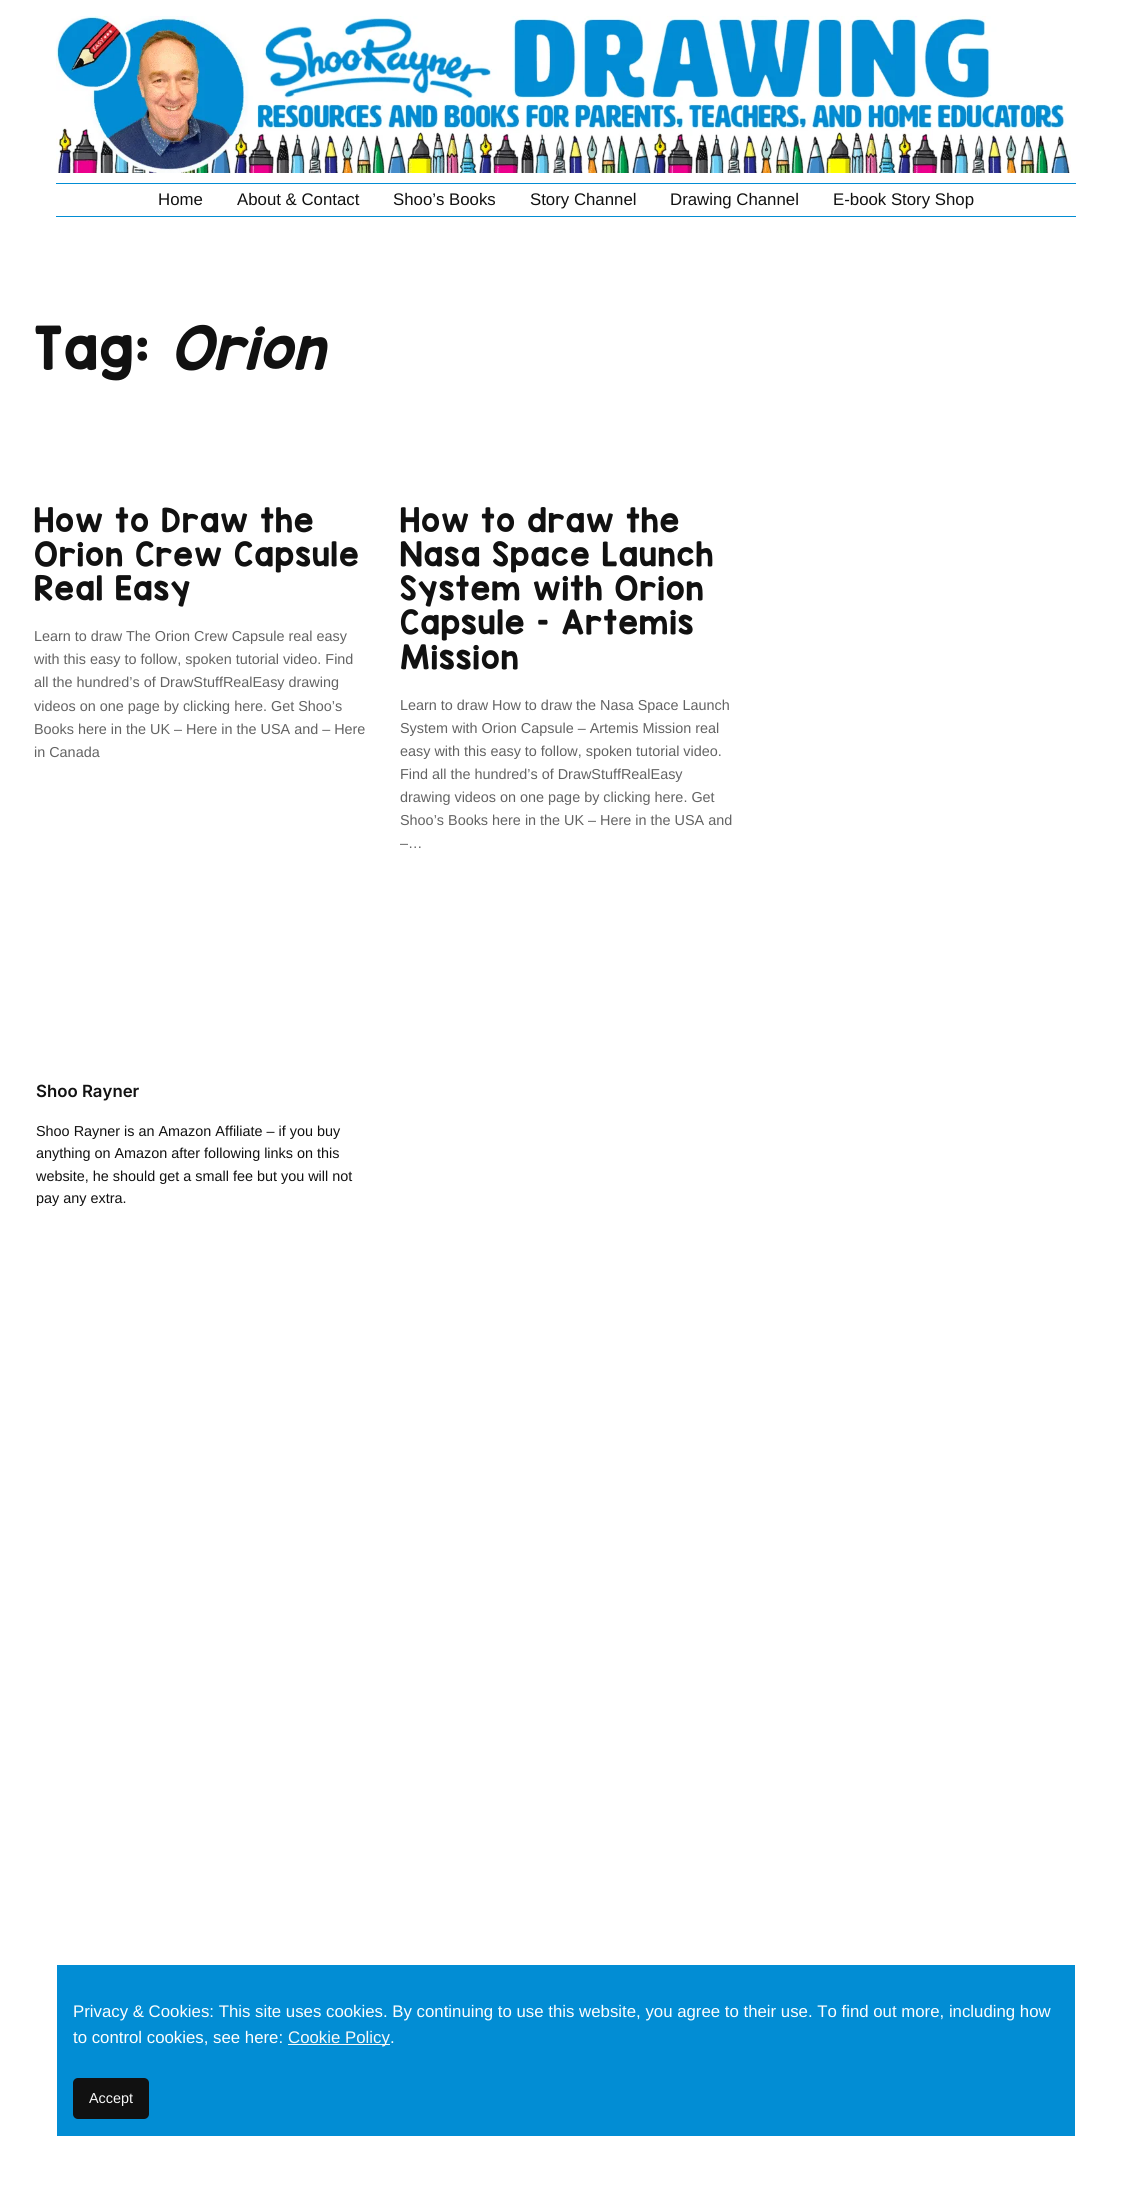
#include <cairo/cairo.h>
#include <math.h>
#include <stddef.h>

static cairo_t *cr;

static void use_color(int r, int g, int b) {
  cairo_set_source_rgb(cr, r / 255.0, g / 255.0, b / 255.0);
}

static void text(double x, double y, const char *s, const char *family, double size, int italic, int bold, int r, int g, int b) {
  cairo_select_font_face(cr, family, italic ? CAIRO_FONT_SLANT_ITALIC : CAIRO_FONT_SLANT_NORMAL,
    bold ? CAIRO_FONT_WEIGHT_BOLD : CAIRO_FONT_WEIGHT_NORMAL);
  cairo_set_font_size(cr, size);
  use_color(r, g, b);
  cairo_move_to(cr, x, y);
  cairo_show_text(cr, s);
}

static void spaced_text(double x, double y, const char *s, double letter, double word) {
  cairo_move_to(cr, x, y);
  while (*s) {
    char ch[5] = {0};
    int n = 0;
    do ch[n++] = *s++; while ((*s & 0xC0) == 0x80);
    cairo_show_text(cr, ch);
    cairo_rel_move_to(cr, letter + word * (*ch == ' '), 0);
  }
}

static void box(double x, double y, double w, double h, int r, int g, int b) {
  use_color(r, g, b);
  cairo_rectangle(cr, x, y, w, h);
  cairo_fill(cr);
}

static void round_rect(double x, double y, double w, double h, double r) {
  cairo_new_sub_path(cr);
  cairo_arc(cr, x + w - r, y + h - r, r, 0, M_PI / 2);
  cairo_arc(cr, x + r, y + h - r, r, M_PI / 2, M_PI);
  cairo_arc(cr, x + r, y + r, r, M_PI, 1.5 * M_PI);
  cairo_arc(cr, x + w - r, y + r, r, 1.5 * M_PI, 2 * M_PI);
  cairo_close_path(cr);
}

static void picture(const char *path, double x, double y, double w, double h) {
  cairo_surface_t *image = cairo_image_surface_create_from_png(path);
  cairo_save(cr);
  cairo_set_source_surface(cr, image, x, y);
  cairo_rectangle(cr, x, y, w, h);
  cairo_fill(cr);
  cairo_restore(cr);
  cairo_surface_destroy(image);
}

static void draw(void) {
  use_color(255, 255, 255);
  cairo_paint(cr);
  picture("img_01.png", 56, 16, 1015, 157);
  box(56, 183, 1020, 1, 2, 141, 212);
  box(56, 216, 1020, 1, 2, 141, 212);
  box(57, 1965, 1018, 171, 2, 141, 212);
  box(288, 2044, 102, 1, 249, 249, 249);
  use_color(17, 17, 17);
  round_rect(73, 2078, 76, 41, 5);
  cairo_fill(cr);
  text(158, 205, "Home", "Liberation Sans", 16.8, 0, 0, 17, 17, 17);
  text(237, 205, "About & Contact", "Liberation Sans", 16.8, 0, 0, 17, 17, 17);
  text(393, 205, "Shoo’s Books", "Liberation Sans", 16.8, 0, 0, 17, 17, 17);
  text(530, 205, "Story Channel", "Liberation Sans", 16.8, 0, 0, 17, 17, 17);
  text(670, 205, "Drawing Channel", "Liberation Sans", 16.8, 0, 0, 17, 17, 17);
  text(833, 205, "E-book Story Shop", "Liberation Sans", 16.8, 0, 0, 17, 17, 17);
  cairo_select_font_face(cr, "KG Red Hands", CAIRO_FONT_SLANT_NORMAL, CAIRO_FONT_WEIGHT_NORMAL);
  cairo_set_font_size(cr, 50.5);
  spaced_text(34, 369, "Tag:", 1, 0);
  cairo_select_font_face(cr, "KG Red Hands", CAIRO_FONT_SLANT_ITALIC, CAIRO_FONT_WEIGHT_NORMAL);
  spaced_text(170, 369, "Orion", 1, 0);
  cairo_select_font_face(cr, "KG Red Hands", CAIRO_FONT_SLANT_NORMAL, CAIRO_FONT_WEIGHT_NORMAL);
  cairo_set_font_size(cr, 28.5);
  spaced_text(34, 532, "How to Draw the", 1, 0);
  spaced_text(34, 566, "Orion Crew Capsule", 1, 0);
  spaced_text(34, 600, "Real Easy", 1, 0);
  text(34, 641, "Learn to draw The Orion Crew Capsule real easy", "Liberation Sans", 14.4, 0, 0, 99, 99, 99);
  text(34, 664, "with this easy to follow, spoken tutorial video. Find", "Liberation Sans", 14.4, 0, 0, 99, 99, 99);
  text(34, 687, "all the hundred’s of DrawStuffRealEasy drawing", "Liberation Sans", 14.4, 0, 0, 99, 99, 99);
  text(34, 711, "videos on one page by clicking here. Get Shoo’s", "Liberation Sans", 14.4, 0, 0, 99, 99, 99);
  text(34, 734, "Books here in the UK – Here in the USA and – Here", "Liberation Sans", 14.4, 0, 0, 99, 99, 99);
  text(34, 757, "in Canada", "Liberation Sans", 14.4, 0, 0, 99, 99, 99);
  cairo_select_font_face(cr, "KG Red Hands", CAIRO_FONT_SLANT_NORMAL, CAIRO_FONT_WEIGHT_NORMAL);
  cairo_set_font_size(cr, 28.5);
  use_color(17, 17, 17);
  spaced_text(400, 532, "How to draw the", 1, 0);
  spaced_text(400, 566, "Nasa Space Launch", 1, 0);
  spaced_text(400, 600, "System with Orion", 1, 0);
  spaced_text(400, 634, "Capsule – Artemis", 1, 0);
  spaced_text(400, 669, "Mission", 1, 0);
  text(400, 710, "Learn to draw How to draw the Nasa Space Launch", "Liberation Sans", 14.4, 0, 0, 99, 99, 99);
  text(400, 733, "System with Orion Capsule – Artemis Mission real", "Liberation Sans", 14.4, 0, 0, 99, 99, 99);
  text(400, 756, "easy with this easy to follow, spoken tutorial video.", "Liberation Sans", 14.4, 0, 0, 99, 99, 99);
  text(400, 779, "Find all the hundred’s of DrawStuffRealEasy", "Liberation Sans", 14.4, 0, 0, 99, 99, 99);
  text(400, 802, "drawing videos on one page by clicking here. Get", "Liberation Sans", 14.4, 0, 0, 99, 99, 99);
  text(400, 825, "Shoo’s Books here in the UK – Here in the USA and", "Liberation Sans", 14.4, 0, 0, 99, 99, 99);
  text(400, 848, "–…", "Liberation Sans", 14.4, 0, 0, 99, 99, 99);
  text(36, 1097, "Shoo Rayner", "Inter SemiBold", 16.8, 0, 0, 17, 17, 17);
  text(36, 1136, "Shoo Rayner is an Amazon Affiliate – if you buy", "Liberation Sans", 14.4, 0, 0, 17, 17, 17);
  text(36, 1158, "anything on Amazon after following links on this", "Liberation Sans", 14.4, 0, 0, 17, 17, 17);
  text(36, 1181, "website, he should get a small fee but you will not", "Liberation Sans", 14.4, 0, 0, 17, 17, 17);
  text(36, 1203, "pay any extra.", "Liberation Sans", 14.4, 0, 0, 17, 17, 17);
  text(73, 2017, "Privacy & Cookies: This site uses cookies. By continuing to use this website, you agree to their use. To find out more, including how", "Liberation Sans", 16.8, 0, 0, 255, 255, 255);
  text(73, 2043, "to control cookies, see here:", "Liberation Sans", 16.8, 0, 0, 255, 255, 255);
  text(288, 2043, "Cookie Policy", "Liberation Sans", 16.8, 0, 0, 249, 249, 249);
  text(390, 2043, ".", "Liberation Sans", 16.8, 0, 0, 255, 255, 255);
  text(89, 2103, "Accept", "Liberation Sans", 14.4, 0, 0, 249, 249, 249);
}

int main(void) {
  cairo_surface_t *surface = cairo_image_surface_create(CAIRO_FORMAT_RGB24, 1132, 2186);
  cr = cairo_create(surface);
  cairo_font_options_t *options = cairo_font_options_create();
  cairo_font_options_set_hint_metrics(options, CAIRO_HINT_METRICS_OFF);
  cairo_font_options_set_hint_style(options, CAIRO_HINT_STYLE_NONE);
  cairo_set_font_options(cr, options);
  cairo_set_miter_limit(cr, 4);
  draw();
  cairo_surface_write_to_png(surface, "out.png");
  cairo_font_options_destroy(options);
  cairo_destroy(cr);
  cairo_surface_destroy(surface);
  return 0;
}
